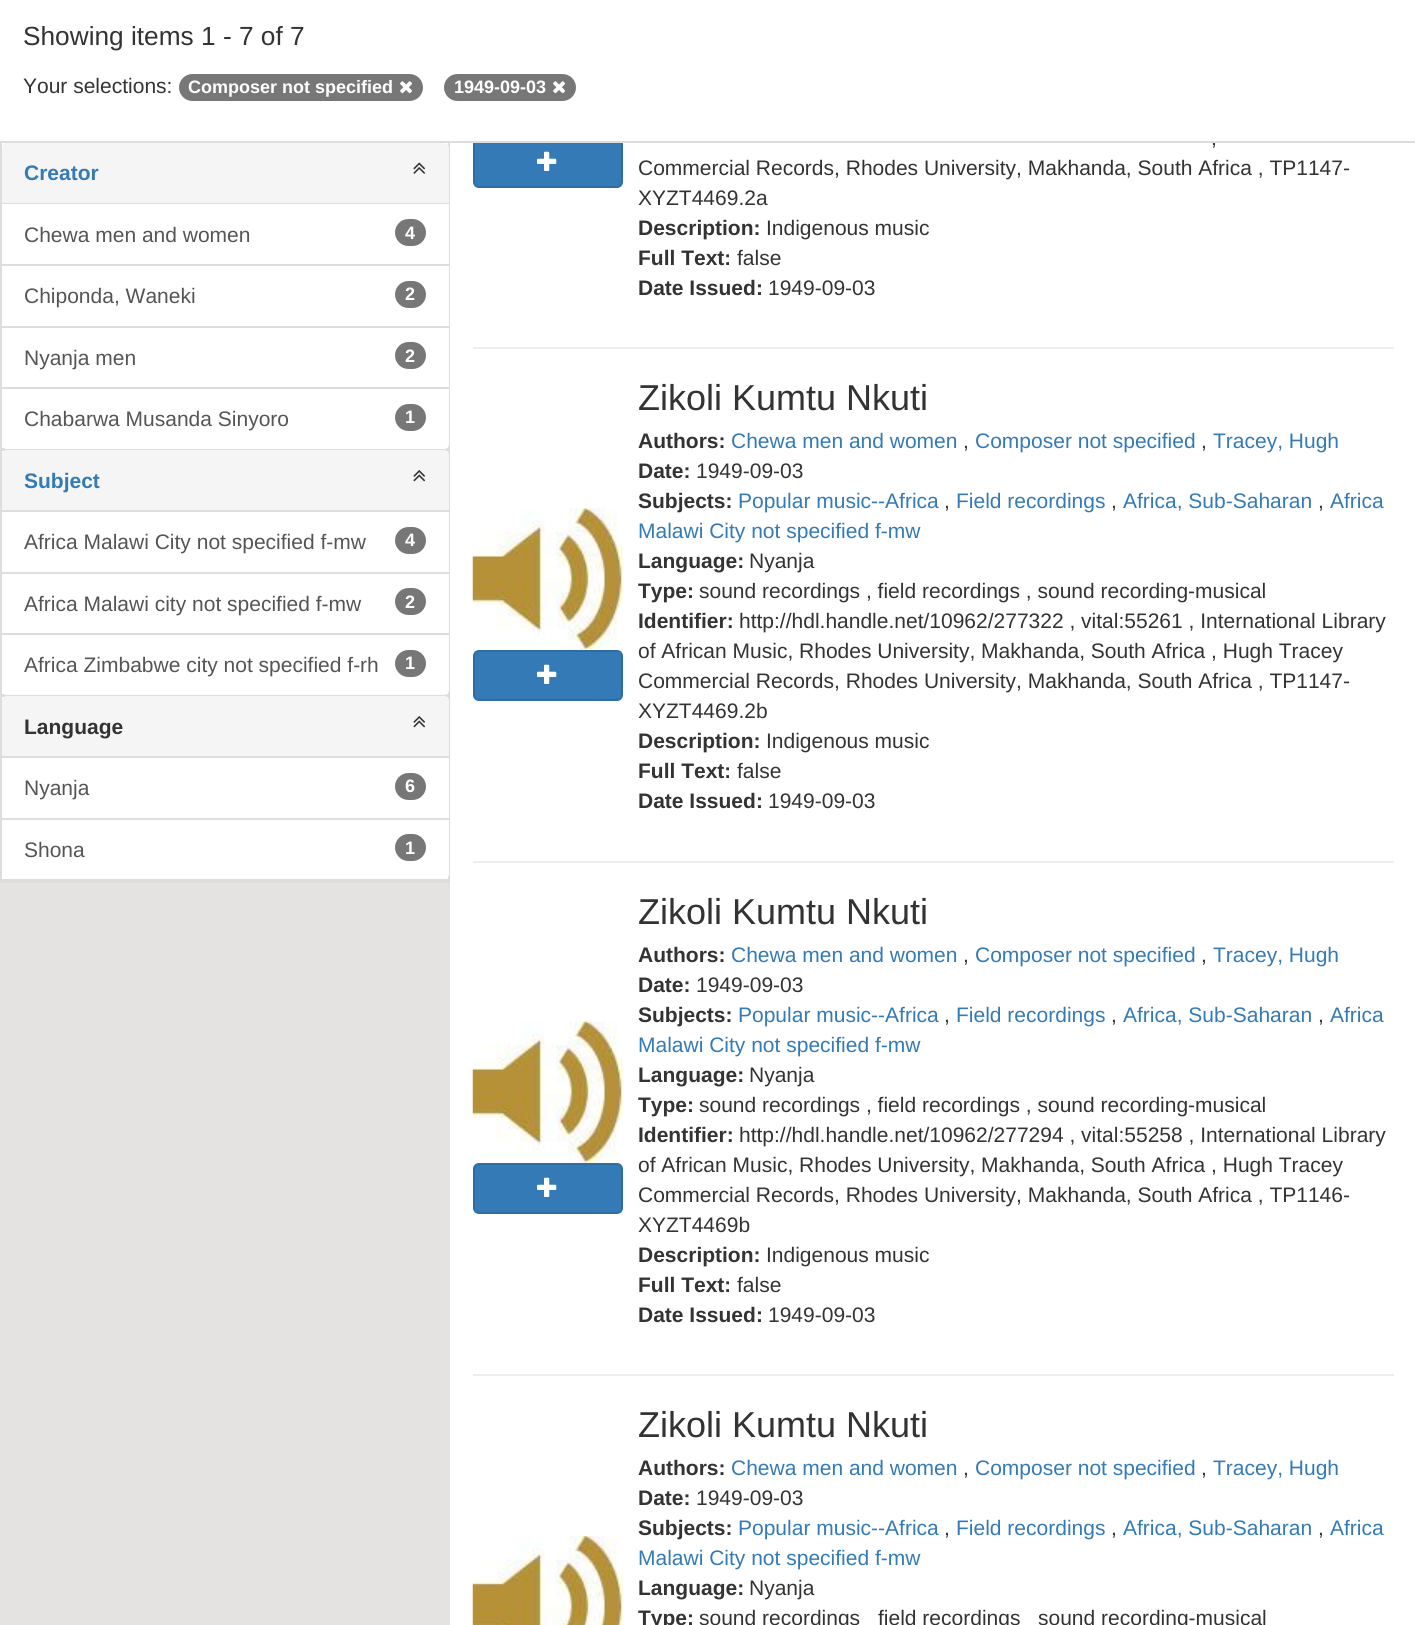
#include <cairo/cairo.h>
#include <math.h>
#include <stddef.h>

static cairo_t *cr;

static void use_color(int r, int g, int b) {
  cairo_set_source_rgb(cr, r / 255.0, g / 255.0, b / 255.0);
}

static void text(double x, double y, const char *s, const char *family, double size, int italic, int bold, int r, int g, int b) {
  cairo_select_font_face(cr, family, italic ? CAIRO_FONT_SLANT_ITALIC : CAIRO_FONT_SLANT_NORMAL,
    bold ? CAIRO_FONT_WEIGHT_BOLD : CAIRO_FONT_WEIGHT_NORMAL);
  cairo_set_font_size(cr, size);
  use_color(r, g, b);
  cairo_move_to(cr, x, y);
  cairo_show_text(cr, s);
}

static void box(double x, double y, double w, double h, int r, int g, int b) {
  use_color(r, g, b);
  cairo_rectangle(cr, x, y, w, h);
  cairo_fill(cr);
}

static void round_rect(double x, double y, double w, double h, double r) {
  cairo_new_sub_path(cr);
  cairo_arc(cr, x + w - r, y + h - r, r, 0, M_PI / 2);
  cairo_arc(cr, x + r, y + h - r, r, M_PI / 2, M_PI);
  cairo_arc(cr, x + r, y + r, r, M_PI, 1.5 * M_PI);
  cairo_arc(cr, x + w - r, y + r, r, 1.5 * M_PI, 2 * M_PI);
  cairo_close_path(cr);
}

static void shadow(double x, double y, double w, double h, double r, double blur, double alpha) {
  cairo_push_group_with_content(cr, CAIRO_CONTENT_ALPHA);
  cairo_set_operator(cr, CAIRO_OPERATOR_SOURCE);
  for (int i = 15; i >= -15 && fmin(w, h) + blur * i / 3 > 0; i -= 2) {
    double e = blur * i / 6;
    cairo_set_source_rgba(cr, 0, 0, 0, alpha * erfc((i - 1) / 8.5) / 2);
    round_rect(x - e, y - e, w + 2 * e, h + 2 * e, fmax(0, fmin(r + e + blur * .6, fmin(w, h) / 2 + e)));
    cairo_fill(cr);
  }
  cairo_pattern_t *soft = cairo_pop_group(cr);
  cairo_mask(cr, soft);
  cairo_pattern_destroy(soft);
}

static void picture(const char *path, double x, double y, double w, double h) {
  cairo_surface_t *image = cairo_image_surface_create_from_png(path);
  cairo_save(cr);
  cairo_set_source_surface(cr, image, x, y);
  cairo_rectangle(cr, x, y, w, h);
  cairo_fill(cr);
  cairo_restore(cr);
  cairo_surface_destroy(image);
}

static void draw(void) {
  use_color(255, 255, 255);
  cairo_paint(cr);
  use_color(51, 122, 183);
  round_rect(474, 138, 148, 49, 5);
  cairo_fill_preserve(cr);
  use_color(46, 109, 164);
  cairo_stroke(cr);
  box(473, 137, 150, 4, 255, 255, 255);
  use_color(119, 119, 119);
  round_rect(179, 74, 244, 27, 13.5);
  cairo_fill(cr);
  picture("img_01.png", 400, 81, 12, 13);
  round_rect(444, 74, 132, 27, 13.5);
  cairo_fill(cr);
  picture("img_01.png", 553, 81, 12, 13);
  box(0, 881, 450, 744, 229, 227, 225);
  cairo_rectangle(cr, 1, 142, 448, 307);
  use_color(221, 221, 221);
  cairo_stroke(cr);
  use_color(245, 245, 245);
  cairo_new_path(cr);
  cairo_move_to(cr, 7, 143);
  cairo_line_to(cr, 444, 143);
  cairo_curve_to(cr, 447, 143, 449, 145, 449, 148);
  cairo_line_to(cr, 449, 204);
  cairo_line_to(cr, 2, 204);
  cairo_line_to(cr, 2, 148);
  cairo_curve_to(cr, 2, 145, 4, 143, 7, 143);
  cairo_close_path(cr);
  cairo_fill(cr);
  box(2, 203, 447, 1, 221, 221, 221);
  picture("img_02.png", 413, 162, 13, 12);
  box(448, 204, 1, 60, 255, 255, 255);
  box(2, 264, 447, 2, 221, 221, 221);
  use_color(119, 119, 119);
  round_rect(395, 219, 31, 27, 13.5);
  cairo_fill(cr);
  box(448, 266, 1, 60, 255, 255, 255);
  use_color(119, 119, 119);
  round_rect(395, 281, 31, 27, 13.5);
  cairo_fill(cr);
  box(448, 328, 1, 59, 255, 255, 255);
  box(2, 326, 447, 2, 221, 221, 221);
  use_color(119, 119, 119);
  round_rect(395, 342, 31, 27, 13.5);
  cairo_fill(cr);
  use_color(255, 255, 255);
  cairo_new_path(cr);
  cairo_move_to(cr, 2, 387);
  cairo_line_to(cr, 449, 387);
  cairo_line_to(cr, 449, 444);
  cairo_curve_to(cr, 449, 447, 447, 449, 444, 449);
  cairo_line_to(cr, 7, 449);
  cairo_curve_to(cr, 4, 449, 2, 447, 2, 444);
  cairo_close_path(cr);
  cairo_fill(cr);
  box(2, 387, 447, 2, 221, 221, 221);
  use_color(119, 119, 119);
  round_rect(395, 404, 31, 27, 13.5);
  cairo_fill(cr);
  cairo_rectangle(cr, 1, 450, 448, 245);
  use_color(221, 221, 221);
  cairo_stroke(cr);
  use_color(245, 245, 245);
  cairo_new_path(cr);
  cairo_move_to(cr, 7, 450);
  cairo_line_to(cr, 444, 450);
  cairo_curve_to(cr, 447, 450, 449, 452, 449, 455);
  cairo_line_to(cr, 449, 512);
  cairo_line_to(cr, 2, 512);
  cairo_line_to(cr, 2, 455);
  cairo_curve_to(cr, 2, 452, 4, 450, 7, 450);
  cairo_close_path(cr);
  cairo_fill(cr);
  box(2, 510, 447, 2, 221, 221, 221);
  picture("img_03.png", 413, 470, 13, 12);
  box(448, 512, 1, 60, 255, 255, 255);
  use_color(119, 119, 119);
  round_rect(395, 527, 31, 27, 13.5);
  cairo_fill(cr);
  box(448, 574, 1, 59, 255, 255, 255);
  box(2, 572, 447, 2, 221, 221, 221);
  use_color(119, 119, 119);
  round_rect(395, 588, 31, 27, 13.5);
  cairo_fill(cr);
  use_color(0, 0, 0);
  shadow(0, 696, 450, 186, 0, 1, 0.05);
  use_color(255, 255, 255);
  cairo_new_path(cr);
  cairo_move_to(cr, 2, 633);
  cairo_line_to(cr, 449, 633);
  cairo_line_to(cr, 449, 690);
  cairo_curve_to(cr, 449, 693, 447, 695, 444, 695);
  cairo_line_to(cr, 7, 695);
  cairo_curve_to(cr, 4, 695, 2, 693, 2, 690);
  cairo_close_path(cr);
  cairo_fill(cr);
  box(2, 633, 447, 2, 221, 221, 221);
  use_color(119, 119, 119);
  round_rect(395, 650, 31, 27, 13.5);
  cairo_fill(cr);
  use_color(255, 255, 255);
  cairo_rectangle(cr, 1, 696, 448, 184);
  cairo_fill_preserve(cr);
  use_color(221, 221, 221);
  cairo_stroke(cr);
  use_color(245, 245, 245);
  cairo_new_path(cr);
  cairo_move_to(cr, 7, 696);
  cairo_line_to(cr, 444, 696);
  cairo_curve_to(cr, 447, 696, 449, 698, 449, 701);
  cairo_line_to(cr, 449, 758);
  cairo_line_to(cr, 2, 758);
  cairo_line_to(cr, 2, 701);
  cairo_curve_to(cr, 2, 698, 4, 696, 7, 696);
  cairo_close_path(cr);
  cairo_fill(cr);
  box(2, 756, 447, 2, 221, 221, 221);
  picture("img_03.png", 413, 716, 13, 12);
  box(448, 758, 1, 60, 255, 255, 255);
  use_color(119, 119, 119);
  round_rect(395, 773, 31, 27, 13.5);
  cairo_fill(cr);
  use_color(255, 255, 255);
  cairo_new_path(cr);
  cairo_move_to(cr, 2, 818);
  cairo_line_to(cr, 449, 818);
  cairo_line_to(cr, 449, 874);
  cairo_curve_to(cr, 449, 877, 447, 879, 444, 879);
  cairo_line_to(cr, 7, 879);
  cairo_curve_to(cr, 4, 879, 2, 877, 2, 874);
  cairo_close_path(cr);
  cairo_fill(cr);
  box(2, 818, 447, 2, 221, 221, 221);
  use_color(119, 119, 119);
  round_rect(395, 834, 31, 27, 13.5);
  cairo_fill(cr);
  picture("img_04.png", 537, 151, 20, 20);
  box(473, 347, 921, 2, 238, 238, 238);
  picture("img_05.png", 472, 508, 151, 142);
  use_color(51, 122, 183);
  round_rect(474, 651, 148, 49, 5);
  cairo_fill_preserve(cr);
  use_color(46, 109, 164);
  cairo_stroke(cr);
  picture("img_04.png", 537, 664, 20, 20);
  box(473, 861, 921, 2, 238, 238, 238);
  picture("img_05.png", 472, 1021, 151, 142);
  use_color(51, 122, 183);
  round_rect(474, 1164, 148, 49, 5);
  cairo_fill_preserve(cr);
  use_color(46, 109, 164);
  cairo_stroke(cr);
  picture("img_04.png", 537, 1177, 20, 20);
  box(473, 1374, 921, 2, 238, 238, 238);
  picture("img_06.png", 472, 1536, 151, 89);
  text(23, 45, "Showing items 1 - 7 of 7", "Liberation Sans", 26.25, 0, 0, 51, 51, 51);
  text(23, 93, "Your selections:", "Liberation Sans", 21, 0, 0, 51, 51, 51);
  text(188, 93, "Composer not specified", "Liberation Sans", 18, 0, 1, 255, 255, 255);
  text(454, 93, "1949-09-03", "Liberation Sans", 18, 0, 1, 255, 255, 255);
  text(24, 180, "Creator", "Liberation Sans", 21, 0, 1, 51, 122, 183);
  text(24, 242, "Chewa men and women", "Liberation Sans", 21, 0, 0, 85, 85, 85);
  text(405, 239, "4", "Liberation Sans", 18, 0, 1, 255, 255, 255);
  text(24, 303, "Chiponda, Waneki", "Liberation Sans", 21, 0, 0, 85, 85, 85);
  text(405, 300, "2", "Liberation Sans", 18, 0, 1, 255, 255, 255);
  text(24, 365, "Nyanja men", "Liberation Sans", 21, 0, 0, 85, 85, 85);
  text(405, 362, "2", "Liberation Sans", 18, 0, 1, 255, 255, 255);
  text(24, 426, "Chabarwa Musanda Sinyoro", "Liberation Sans", 21, 0, 0, 85, 85, 85);
  text(405, 423, "1", "Liberation Sans", 18, 0, 1, 255, 255, 255);
  text(24, 488, "Subject", "Liberation Sans", 21, 0, 1, 51, 122, 183);
  text(24, 549, "Africa Malawi City not specified f-mw", "Liberation Sans", 21, 0, 0, 85, 85, 85);
  text(405, 546, "4", "Liberation Sans", 18, 0, 1, 255, 255, 255);
  text(24, 611, "Africa Malawi city not specified f-mw", "Liberation Sans", 21, 0, 0, 85, 85, 85);
  text(405, 608, "2", "Liberation Sans", 18, 0, 1, 255, 255, 255);
  text(24, 672, "Africa Zimbabwe city not specified f-rh", "Liberation Sans", 21, 0, 0, 85, 85, 85);
  text(405, 669, "1", "Liberation Sans", 18, 0, 1, 255, 255, 255);
  text(24, 734, "Language", "Liberation Sans", 21, 0, 1, 51, 51, 51);
  text(24, 795, "Nyanja", "Liberation Sans", 21, 0, 0, 85, 85, 85);
  text(405, 792, "6", "Liberation Sans", 18, 0, 1, 255, 255, 255);
  text(24, 857, "Shona", "Liberation Sans", 21, 0, 0, 85, 85, 85);
  text(405, 854, "1", "Liberation Sans", 18, 0, 1, 255, 255, 255);
  text(1211, 145, ",", "Liberation Sans", 21, 0, 0, 51, 51, 51);
  box(450, 141, 965, 2, 221, 221, 221);
  text(638, 175, "Commercial Records, Rhodes University, Makhanda, South Africa , TP1147-", "Liberation Sans", 21, 0, 0, 51, 51, 51);
  text(638, 205, "XYZT4469.2a", "Liberation Sans", 21, 0, 0, 51, 51, 51);
  text(638, 235, "Description:", "Liberation Sans", 21, 0, 1, 51, 51, 51);
  text(766, 235, "Indigenous music", "Liberation Sans", 21, 0, 0, 51, 51, 51);
  text(638, 265, "Full Text:", "Liberation Sans", 21, 0, 1, 51, 51, 51);
  text(737, 265, "false", "Liberation Sans", 21, 0, 0, 51, 51, 51);
  text(638, 295, "Date Issued:", "Liberation Sans", 21, 0, 1, 51, 51, 51);
  text(768, 295, "1949-09-03", "Liberation Sans", 21, 0, 0, 51, 51, 51);
  text(638, 410, "Zikoli Kumtu Nkuti", "Liberation Sans", 36, 0, 0, 51, 51, 51);
  text(638, 448, "Authors:", "Liberation Sans", 21, 0, 1, 51, 51, 51);
  text(731, 448, "Chewa men and women", "Liberation Sans", 21, 0, 0, 51, 122, 183);
  text(963, 448, ",", "Liberation Sans", 21, 0, 0, 51, 51, 51);
  text(975, 448, "Composer not specified", "Liberation Sans", 21, 0, 0, 51, 122, 183);
  text(1201, 448, ",", "Liberation Sans", 21, 0, 0, 51, 51, 51);
  text(1213, 448, "Tracey, Hugh", "Liberation Sans", 21, 0, 0, 51, 122, 183);
  text(638, 478, "Date:", "Liberation Sans", 21, 0, 1, 51, 51, 51);
  text(696, 478, "1949-09-03", "Liberation Sans", 21, 0, 0, 51, 51, 51);
  text(638, 508, "Subjects:", "Liberation Sans", 21, 0, 1, 51, 51, 51);
  text(738, 508, "Popular music--Africa", "Liberation Sans", 21, 0, 0, 51, 122, 183);
  text(944, 508, ",", "Liberation Sans", 21, 0, 0, 51, 51, 51);
  text(956, 508, "Field recordings", "Liberation Sans", 21, 0, 0, 51, 122, 183);
  text(1111, 508, ",", "Liberation Sans", 21, 0, 0, 51, 51, 51);
  text(1123, 508, "Africa, Sub-Saharan", "Liberation Sans", 21, 0, 0, 51, 122, 183);
  text(1318, 508, ",", "Liberation Sans", 21, 0, 0, 51, 51, 51);
  text(1330, 508, "Africa", "Liberation Sans", 21, 0, 0, 51, 122, 183);
  text(638, 538, "Malawi City not specified f-mw", "Liberation Sans", 21, 0, 0, 51, 122, 183);
  text(638, 568, "Language:", "Liberation Sans", 21, 0, 1, 51, 51, 51);
  text(749, 568, "Nyanja", "Liberation Sans", 21, 0, 0, 51, 51, 51);
  cairo_save(cr);
  cairo_rectangle(cr, 638, 378, 756, 453);
  cairo_clip(cr);
  text(638, 598, "Type:", "Liberation Sans", 21, 0, 1, 51, 51, 51);
  cairo_restore(cr);
  text(699, 598, "sound recordings , field recordings , sound recording-musical", "Liberation Sans", 21, 0, 0, 51, 51, 51);
  text(638, 628, "Identifier:", "Liberation Sans", 21, 0, 1, 51, 51, 51);
  text(739, 628, "http://hdl.handle.net/10962/277322 , vital:55261 , International Library", "Liberation Sans", 21, 0, 0, 51, 51, 51);
  text(638, 658, "of African Music, Rhodes University, Makhanda, South Africa , Hugh Tracey", "Liberation Sans", 21, 0, 0, 51, 51, 51);
  text(638, 688, "Commercial Records, Rhodes University, Makhanda, South Africa , TP1147-", "Liberation Sans", 21, 0, 0, 51, 51, 51);
  text(638, 718, "XYZT4469.2b", "Liberation Sans", 21, 0, 0, 51, 51, 51);
  text(638, 748, "Description:", "Liberation Sans", 21, 0, 1, 51, 51, 51);
  text(766, 748, "Indigenous music", "Liberation Sans", 21, 0, 0, 51, 51, 51);
  text(638, 778, "Full Text:", "Liberation Sans", 21, 0, 1, 51, 51, 51);
  text(737, 778, "false", "Liberation Sans", 21, 0, 0, 51, 51, 51);
  text(638, 808, "Date Issued:", "Liberation Sans", 21, 0, 1, 51, 51, 51);
  text(768, 808, "1949-09-03", "Liberation Sans", 21, 0, 0, 51, 51, 51);
  text(638, 924, "Zikoli Kumtu Nkuti", "Liberation Sans", 36, 0, 0, 51, 51, 51);
  text(638, 962, "Authors:", "Liberation Sans", 21, 0, 1, 51, 51, 51);
  text(731, 962, "Chewa men and women", "Liberation Sans", 21, 0, 0, 51, 122, 183);
  text(963, 962, ",", "Liberation Sans", 21, 0, 0, 51, 51, 51);
  text(975, 962, "Composer not specified", "Liberation Sans", 21, 0, 0, 51, 122, 183);
  text(1201, 962, ",", "Liberation Sans", 21, 0, 0, 51, 51, 51);
  text(1213, 962, "Tracey, Hugh", "Liberation Sans", 21, 0, 0, 51, 122, 183);
  text(638, 992, "Date:", "Liberation Sans", 21, 0, 1, 51, 51, 51);
  text(696, 992, "1949-09-03", "Liberation Sans", 21, 0, 0, 51, 51, 51);
  text(638, 1022, "Subjects:", "Liberation Sans", 21, 0, 1, 51, 51, 51);
  text(738, 1022, "Popular music--Africa", "Liberation Sans", 21, 0, 0, 51, 122, 183);
  text(944, 1022, ",", "Liberation Sans", 21, 0, 0, 51, 51, 51);
  text(956, 1022, "Field recordings", "Liberation Sans", 21, 0, 0, 51, 122, 183);
  text(1111, 1022, ",", "Liberation Sans", 21, 0, 0, 51, 51, 51);
  text(1123, 1022, "Africa, Sub-Saharan", "Liberation Sans", 21, 0, 0, 51, 122, 183);
  text(1318, 1022, ",", "Liberation Sans", 21, 0, 0, 51, 51, 51);
  text(1330, 1022, "Africa", "Liberation Sans", 21, 0, 0, 51, 122, 183);
  text(638, 1052, "Malawi City not specified f-mw", "Liberation Sans", 21, 0, 0, 51, 122, 183);
  text(638, 1082, "Language:", "Liberation Sans", 21, 0, 1, 51, 51, 51);
  text(749, 1082, "Nyanja", "Liberation Sans", 21, 0, 0, 51, 51, 51);
  cairo_save(cr);
  cairo_rectangle(cr, 638, 893, 756, 451);
  cairo_clip(cr);
  text(638, 1112, "Type:", "Liberation Sans", 21, 0, 1, 51, 51, 51);
  cairo_restore(cr);
  text(699, 1112, "sound recordings , field recordings , sound recording-musical", "Liberation Sans", 21, 0, 0, 51, 51, 51);
  text(638, 1142, "Identifier:", "Liberation Sans", 21, 0, 1, 51, 51, 51);
  text(739, 1142, "http://hdl.handle.net/10962/277294 , vital:55258 , International Library", "Liberation Sans", 21, 0, 0, 51, 51, 51);
  text(638, 1172, "of African Music, Rhodes University, Makhanda, South Africa , Hugh Tracey", "Liberation Sans", 21, 0, 0, 51, 51, 51);
  text(638, 1202, "Commercial Records, Rhodes University, Makhanda, South Africa , TP1146-", "Liberation Sans", 21, 0, 0, 51, 51, 51);
  text(638, 1232, "XYZT4469b", "Liberation Sans", 21, 0, 0, 51, 51, 51);
  text(638, 1262, "Description:", "Liberation Sans", 21, 0, 1, 51, 51, 51);
  text(766, 1262, "Indigenous music", "Liberation Sans", 21, 0, 0, 51, 51, 51);
  text(638, 1292, "Full Text:", "Liberation Sans", 21, 0, 1, 51, 51, 51);
  text(737, 1292, "false", "Liberation Sans", 21, 0, 0, 51, 51, 51);
  text(638, 1322, "Date Issued:", "Liberation Sans", 21, 0, 1, 51, 51, 51);
  text(768, 1322, "1949-09-03", "Liberation Sans", 21, 0, 0, 51, 51, 51);
  text(638, 1437, "Zikoli Kumtu Nkuti", "Liberation Sans", 36, 0, 0, 51, 51, 51);
  text(638, 1475, "Authors:", "Liberation Sans", 21, 0, 1, 51, 51, 51);
  text(731, 1475, "Chewa men and women", "Liberation Sans", 21, 0, 0, 51, 122, 183);
  text(963, 1475, ",", "Liberation Sans", 21, 0, 0, 51, 51, 51);
  text(975, 1475, "Composer not specified", "Liberation Sans", 21, 0, 0, 51, 122, 183);
  text(1201, 1475, ",", "Liberation Sans", 21, 0, 0, 51, 51, 51);
  text(1213, 1475, "Tracey, Hugh", "Liberation Sans", 21, 0, 0, 51, 122, 183);
  text(638, 1505, "Date:", "Liberation Sans", 21, 0, 1, 51, 51, 51);
  text(696, 1505, "1949-09-03", "Liberation Sans", 21, 0, 0, 51, 51, 51);
  text(638, 1535, "Subjects:", "Liberation Sans", 21, 0, 1, 51, 51, 51);
  text(738, 1535, "Popular music--Africa", "Liberation Sans", 21, 0, 0, 51, 122, 183);
  text(944, 1535, ",", "Liberation Sans", 21, 0, 0, 51, 51, 51);
  text(956, 1535, "Field recordings", "Liberation Sans", 21, 0, 0, 51, 122, 183);
  text(1111, 1535, ",", "Liberation Sans", 21, 0, 0, 51, 51, 51);
  text(1123, 1535, "Africa, Sub-Saharan", "Liberation Sans", 21, 0, 0, 51, 122, 183);
  text(1318, 1535, ",", "Liberation Sans", 21, 0, 0, 51, 51, 51);
  text(1330, 1535, "Africa", "Liberation Sans", 21, 0, 0, 51, 122, 183);
  text(638, 1565, "Malawi City not specified f-mw", "Liberation Sans", 21, 0, 0, 51, 122, 183);
  text(638, 1595, "Language:", "Liberation Sans", 21, 0, 1, 51, 51, 51);
  text(749, 1595, "Nyanja", "Liberation Sans", 21, 0, 0, 51, 51, 51);
  cairo_save(cr);
  cairo_rectangle(cr, 638, 1406, 756, 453);
  cairo_clip(cr);
  text(638, 1625, "Type:", "Liberation Sans", 21, 0, 1, 51, 51, 51);
  cairo_restore(cr);
  text(699, 1625, "sound recordings", "Liberation Sans", 21, 0, 0, 51, 51, 51);
  text(878, 1625, "field recordings", "Liberation Sans", 21, 0, 0, 51, 51, 51);
  text(1038, 1625, "sound recording-musical", "Liberation Sans", 21, 0, 0, 51, 51, 51);
}

int main(void) {
  cairo_surface_t *surface = cairo_image_surface_create(CAIRO_FORMAT_RGB24, 1415, 1625);
  cr = cairo_create(surface);
  cairo_font_options_t *options = cairo_font_options_create();
  cairo_font_options_set_hint_metrics(options, CAIRO_HINT_METRICS_OFF);
  cairo_font_options_set_hint_style(options, CAIRO_HINT_STYLE_NONE);
  cairo_set_font_options(cr, options);
  cairo_set_miter_limit(cr, 4);
  draw();
  cairo_surface_write_to_png(surface, "out.png");
  cairo_font_options_destroy(options);
  cairo_destroy(cr);
  cairo_surface_destroy(surface);
  return 0;
}
